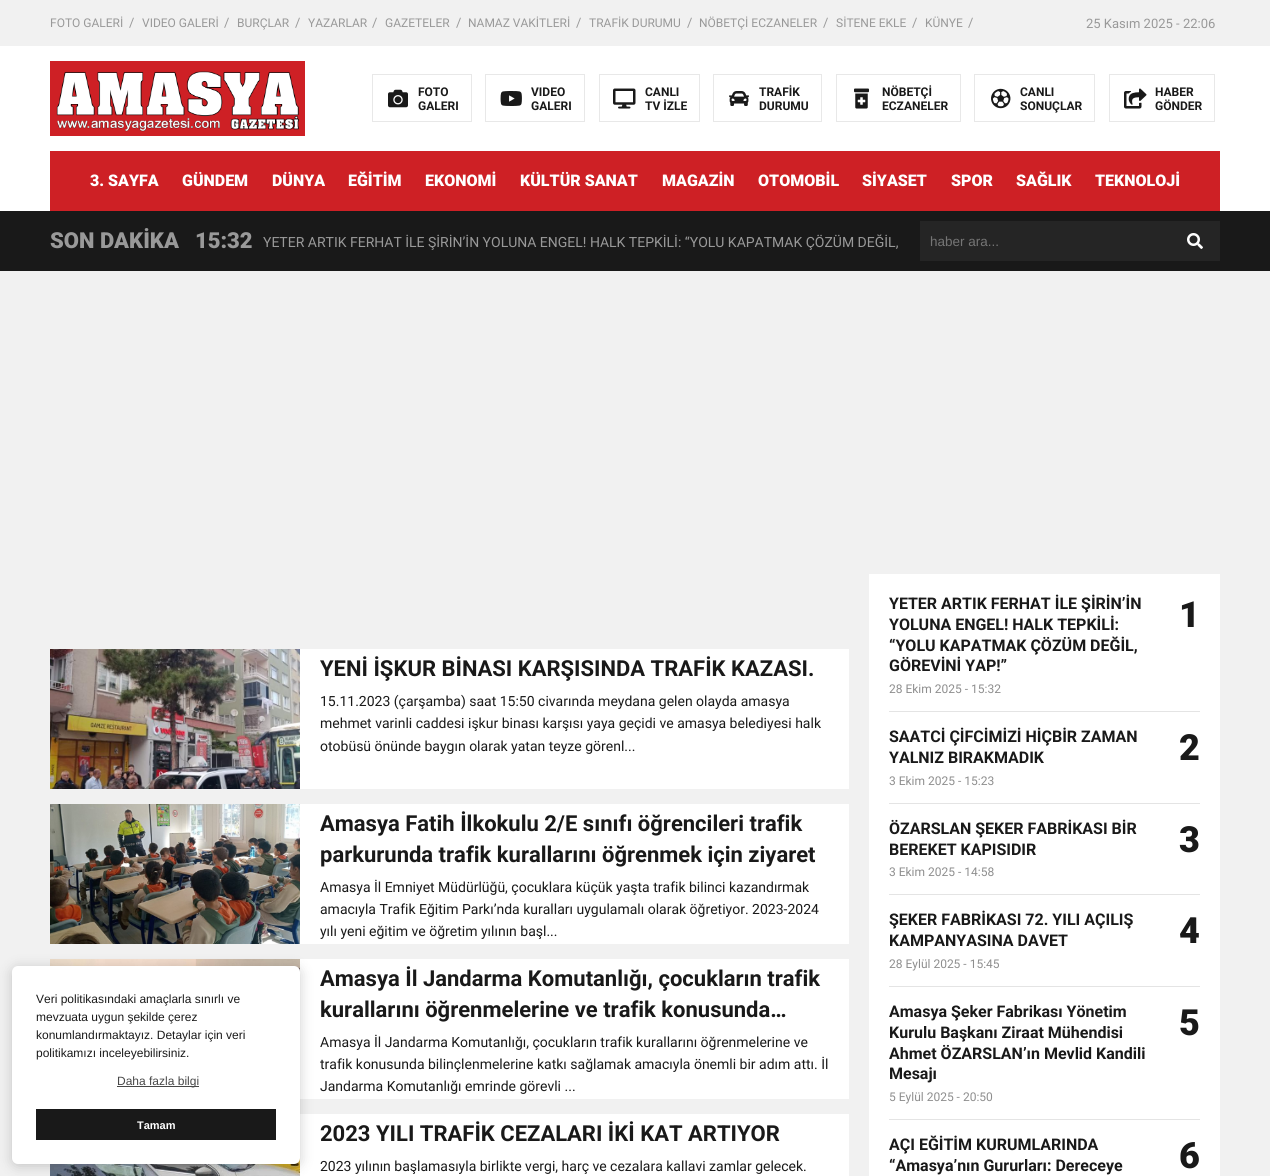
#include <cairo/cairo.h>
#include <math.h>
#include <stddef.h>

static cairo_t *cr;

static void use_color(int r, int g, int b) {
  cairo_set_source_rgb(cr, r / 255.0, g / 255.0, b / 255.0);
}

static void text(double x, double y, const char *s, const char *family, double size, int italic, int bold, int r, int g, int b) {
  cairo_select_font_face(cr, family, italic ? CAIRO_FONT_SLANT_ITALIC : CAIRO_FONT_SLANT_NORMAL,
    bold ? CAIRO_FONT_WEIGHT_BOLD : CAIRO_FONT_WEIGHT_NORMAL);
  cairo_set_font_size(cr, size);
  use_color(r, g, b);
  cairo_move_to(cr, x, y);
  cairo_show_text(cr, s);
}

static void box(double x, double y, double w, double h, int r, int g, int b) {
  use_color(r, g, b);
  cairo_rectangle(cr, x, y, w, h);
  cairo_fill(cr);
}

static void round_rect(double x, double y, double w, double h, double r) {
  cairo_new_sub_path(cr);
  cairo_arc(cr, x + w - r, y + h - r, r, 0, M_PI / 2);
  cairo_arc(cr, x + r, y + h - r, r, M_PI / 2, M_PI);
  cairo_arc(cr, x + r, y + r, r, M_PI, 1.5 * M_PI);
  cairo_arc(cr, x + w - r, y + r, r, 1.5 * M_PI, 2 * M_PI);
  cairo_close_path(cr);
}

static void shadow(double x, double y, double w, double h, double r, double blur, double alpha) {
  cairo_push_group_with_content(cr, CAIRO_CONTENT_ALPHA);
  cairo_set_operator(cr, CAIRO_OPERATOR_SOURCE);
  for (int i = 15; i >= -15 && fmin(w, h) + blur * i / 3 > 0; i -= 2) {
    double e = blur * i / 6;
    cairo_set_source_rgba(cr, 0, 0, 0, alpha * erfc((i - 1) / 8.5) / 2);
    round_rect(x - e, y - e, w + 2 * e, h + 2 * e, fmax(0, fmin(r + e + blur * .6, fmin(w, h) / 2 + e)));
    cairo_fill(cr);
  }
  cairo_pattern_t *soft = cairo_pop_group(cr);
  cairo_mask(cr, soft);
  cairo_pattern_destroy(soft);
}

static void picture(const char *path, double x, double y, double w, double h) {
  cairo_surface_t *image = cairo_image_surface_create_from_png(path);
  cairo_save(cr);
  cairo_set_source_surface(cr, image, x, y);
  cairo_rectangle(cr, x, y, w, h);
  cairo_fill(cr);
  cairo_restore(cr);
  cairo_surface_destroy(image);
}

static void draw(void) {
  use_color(241, 241, 241);
  cairo_paint(cr);
  box(0, 46, 1270, 165, 255, 255, 255);
  picture("img_01.png", 50, 61, 255, 75);
  cairo_rectangle(cr, 372.5, 74.5, 99, 47);
  use_color(232, 232, 232);
  cairo_set_line_width(cr, 1);
  cairo_stroke(cr);
  picture("img_02.png", 388, 89, 20, 19);
  cairo_rectangle(cr, 485.5, 74.5, 99, 47);
  cairo_stroke(cr);
  picture("img_03.png", 500, 91, 22, 15);
  cairo_rectangle(cr, 599.5, 74.5, 100, 47);
  cairo_stroke(cr);
  picture("img_04.png", 613, 88, 23, 21);
  cairo_rectangle(cr, 713.5, 74.5, 108, 47);
  cairo_stroke(cr);
  picture("img_05.png", 729, 91, 20, 15);
  cairo_rectangle(cr, 836.5, 74.5, 124, 47);
  cairo_stroke(cr);
  picture("img_06.png", 854, 88, 15, 21);
  cairo_rectangle(cr, 974.5, 74.5, 120, 47);
  cairo_stroke(cr);
  picture("img_07.png", 991, 88, 20, 21);
  cairo_rectangle(cr, 1109.5, 74.5, 105, 47);
  cairo_stroke(cr);
  picture("img_08.png", 1124, 88, 23, 21);
  box(50, 151, 1170, 60, 206, 32, 37);
  box(0, 211, 1270, 60, 25, 25, 25);
  box(920, 221, 300, 40, 37, 37, 37);
  picture("img_09.png", 1187, 233, 16, 16);
  box(300, 959, 549, 140, 255, 255, 255);
  picture("img_12.png", 50, 959, 250, 13);
  box(300, 1114, 549, 62, 255, 255, 255);
  picture("img_13.png", 50, 1158, 250, 18);
  use_color(0, 0, 0);
  shadow(12, 968, 288, 198, 6, 6.5, 0.19);
  use_color(255, 255, 255);
  round_rect(12, 966, 288, 198, 6);
  cairo_fill(cr);
  box(117, 1086, 82, 1, 71, 71, 71);
  box(36, 1109, 240, 31, 25, 25, 25);
  box(300, 649, 549, 140, 255, 255, 255);
  picture("img_10.png", 50, 649, 250, 140);
  box(300, 804, 549, 140, 255, 255, 255);
  picture("img_11.png", 50, 804, 250, 140);
  box(869, 574, 351, 602, 255, 255, 255);
  box(889, 711, 311, 1, 228, 228, 228);
  box(889, 803, 311, 1, 228, 228, 228);
  box(889, 894, 311, 1, 228, 228, 228);
  box(889, 986, 311, 1, 228, 228, 228);
  box(889, 1119, 311, 1, 228, 228, 228);
  text(50, 27, "FOTO GALERİ", "Roboto", 12, 0, 0, 153, 153, 153);
  text(129, 27, "/", "Roboto", 13, 0, 0, 153, 153, 153);
  text(142, 27, "VIDEO GALERİ", "Roboto", 12, 0, 0, 153, 153, 153);
  text(224, 27, "/", "Roboto", 13, 0, 0, 153, 153, 153);
  text(237, 27, "BURÇLAR", "Roboto", 12, 0, 0, 153, 153, 153);
  text(295, 27, "/", "Roboto", 13, 0, 0, 153, 153, 153);
  text(308, 27, "YAZARLAR", "Roboto", 12, 0, 0, 153, 153, 153);
  text(372, 27, "/", "Roboto", 13, 0, 0, 153, 153, 153);
  text(385, 27, "GAZETELER", "Roboto", 12, 0, 0, 153, 153, 153);
  text(456, 27, "/", "Roboto", 13, 0, 0, 153, 153, 153);
  text(468, 27, "NAMAZ VAKİTLERİ", "Roboto", 12, 0, 0, 153, 153, 153);
  text(576, 27, "/", "Roboto", 13, 0, 0, 153, 153, 153);
  text(589, 27, "TRAFİK DURUMU", "Roboto", 12, 0, 0, 153, 153, 153);
  text(687, 27, "/", "Roboto", 13, 0, 0, 153, 153, 153);
  text(699, 27, "NÖBETÇİ ECZANELER", "Roboto", 12, 0, 0, 153, 153, 153);
  text(823, 27, "/", "Roboto", 13, 0, 0, 153, 153, 153);
  text(836, 27, "SİTENE EKLE", "Roboto", 12, 0, 0, 153, 153, 153);
  text(912, 27, "/", "Roboto", 13, 0, 0, 153, 153, 153);
  text(925, 27, "KÜNYE", "Roboto", 12, 0, 0, 153, 153, 153);
  text(968, 27, "/", "Roboto", 13, 0, 0, 153, 153, 153);
  text(1086, 28, "25 Kasım 2025 - 22:06", "Roboto", 13, 0, 0, 153, 153, 153);
  text(418, 96, "FOTO", "Roboto", 12, 0, 1, 25, 25, 25);
  text(418, 110, "GALERI", "Roboto", 12, 0, 1, 25, 25, 25);
  text(531, 96, "VIDEO", "Roboto", 12, 0, 1, 25, 25, 25);
  text(531, 110, "GALERI", "Roboto", 12, 0, 1, 25, 25, 25);
  text(645, 96, "CANLI", "Roboto", 12, 0, 1, 25, 25, 25);
  text(645, 110, "TV İZLE", "Roboto", 12, 0, 1, 25, 25, 25);
  text(759, 96, "TRAFİK", "Roboto", 12, 0, 1, 25, 25, 25);
  text(759, 110, "DURUMU", "Roboto", 12, 0, 1, 25, 25, 25);
  text(882, 96, "NÖBETÇİ", "Roboto", 12, 0, 1, 25, 25, 25);
  text(882, 110, "ECZANELER", "Roboto", 12, 0, 1, 25, 25, 25);
  text(1020, 96, "CANLI", "Roboto", 12, 0, 1, 25, 25, 25);
  text(1020, 110, "SONUÇLAR", "Roboto", 12, 0, 1, 25, 25, 25);
  text(1155, 96, "HABER", "Roboto", 12, 0, 1, 25, 25, 25);
  text(1155, 110, "GÖNDER", "Roboto", 12, 0, 1, 25, 25, 25);
  text(90, 186, "3. SAYFA", "Roboto Black", 16, 0, 0, 255, 255, 255);
  text(182, 186, "GÜNDEM", "Roboto Black", 16, 0, 0, 255, 255, 255);
  text(272, 186, "DÜNYA", "Roboto Black", 16, 0, 0, 255, 255, 255);
  text(348, 186, "EĞİTİM", "Roboto Black", 16, 0, 0, 255, 255, 255);
  text(425, 186, "EKONOMİ", "Roboto Black", 16, 0, 0, 255, 255, 255);
  text(520, 186, "KÜLTÜR SANAT", "Roboto Black", 16, 0, 0, 255, 255, 255);
  text(662, 186, "MAGAZİN", "Roboto Black", 16, 0, 0, 255, 255, 255);
  text(758, 186, "OTOMOBİL", "Roboto Black", 16, 0, 0, 255, 255, 255);
  text(862, 186, "SİYASET", "Roboto Black", 16, 0, 0, 255, 255, 255);
  text(951, 186, "SPOR", "Roboto Black", 16, 0, 0, 255, 255, 255);
  text(1016, 186, "SAĞLIK", "Roboto Black", 16, 0, 0, 255, 255, 255);
  text(1095, 186, "TEKNOLOJİ", "Roboto Black", 16, 0, 0, 255, 255, 255);
  text(50, 248, "SON DAKİKA", "Roboto Black", 22, 0, 0, 153, 153, 153);
  text(195, 248, "15:32", "Roboto Black", 22, 0, 0, 153, 153, 153);
  text(263, 247, "YETER ARTIK FERHAT İLE ŞİRİN’İN YOLUNA ENGEL! HALK TEPKİLİ: “YOLU KAPATMAK ÇÖZÜM DEĞİL,", "Roboto", 14, 0, 0, 153, 153, 153);
  text(930, 246, "haber ara...", "Liberation Sans", 13.5, 0, 0, 117, 117, 117);
  text(36, 1003, "Veri politikasındaki amaçlarla sınırlı ve", "Liberation Sans", 12, 0, 0, 25, 25, 25);
  text(36, 1021, "mevzuata uygun şekilde çerez", "Liberation Sans", 12, 0, 0, 25, 25, 25);
  text(36, 1039, "konumlandırmaktayız. Detaylar için veri", "Liberation Sans", 12, 0, 0, 25, 25, 25);
  text(36, 1057, "politikamızı inceleyebilirsiniz.", "Liberation Sans", 12, 0, 0, 25, 25, 25);
  text(117, 1085, "Daha fazla bilgi", "Liberation Sans", 12, 0, 0, 71, 71, 71);
  text(137, 1129, "Tamam", "Liberation Sans", 11, 0, 1, 255, 255, 255);
  text(320, 676, "YENİ İŞKUR BİNASI KARŞISINDA TRAFİK KAZASI.", "Roboto", 22, 0, 1, 25, 25, 25);
  text(320, 706, "15.11.2023 (çarşamba) saat 15:50 civarında meydana gelen olayda amasya", "Roboto", 14, 0, 0, 25, 25, 25);
  text(320, 728, "mehmet varinli caddesi işkur binası karşısı yaya geçidi ve amasya belediyesi halk", "Roboto", 14, 0, 0, 25, 25, 25);
  text(320, 751, "otobüsü önünde baygın olarak yatan teyze görenl...", "Roboto", 14, 0, 0, 25, 25, 25);
  text(320, 831, "Amasya Fatih İlkokulu 2/E sınıfı öğrencileri trafik", "Roboto", 22, 0, 1, 25, 25, 25);
  text(320, 862, "parkurunda trafik kurallarını öğrenmek için ziyaret", "Roboto", 22, 0, 1, 25, 25, 25);
  text(320, 892, "Amasya İl Emniyet Müdürlüğü, çocuklara küçük yaşta trafik bilinci kazandırmak", "Roboto", 14, 0, 0, 25, 25, 25);
  text(320, 914, "amacıyla Trafik Eğitim Parkı’nda kuralları uygulamalı olarak öğretiyor. 2023-2024", "Roboto", 14, 0, 0, 25, 25, 25);
  text(320, 936, "yılı yeni eğitim ve öğretim yılının başl...", "Roboto", 14, 0, 0, 25, 25, 25);
  text(320, 986, "Amasya İl Jandarma Komutanlığı, çocukların trafik", "Roboto", 22, 0, 1, 25, 25, 25);
  text(320, 1017, "kurallarını öğrenmelerine ve trafik konusunda…", "Roboto", 22, 0, 1, 25, 25, 25);
  text(320, 1047, "Amasya İl Jandarma Komutanlığı, çocukların trafik kurallarını öğrenmelerine ve", "Roboto", 14, 0, 0, 25, 25, 25);
  text(320, 1069, "trafik konusunda bilinçlenmelerine katkı sağlamak amacıyla önemli bir adım attı. İl", "Roboto", 14, 0, 0, 25, 25, 25);
  text(320, 1091, "Jandarma Komutanlığı emrinde görevli ...", "Roboto", 14, 0, 0, 25, 25, 25);
  text(320, 1141, "2023 YILI TRAFİK CEZALARI İKİ KAT ARTIYOR", "Roboto", 22, 0, 1, 25, 25, 25);
  text(320, 1171, "2023 yılının başlamasıyla birlikte vergi, harç ve cezalara kallavi zamlar gelecek.", "Roboto", 14, 0, 0, 25, 25, 25);
  text(889, 609, "YETER ARTIK FERHAT İLE ŞİRİN’İN", "Roboto", 16, 0, 1, 25, 25, 25);
  text(889, 630, "YOLUNA ENGEL! HALK TEPKİLİ:", "Roboto", 16, 0, 1, 25, 25, 25);
  text(889, 651, "“YOLU KAPATMAK ÇÖZÜM DEĞİL,", "Roboto", 16, 0, 1, 25, 25, 25);
  text(889, 671, "GÖREVİNİ YAP!”", "Roboto", 16, 0, 1, 25, 25, 25);
  text(1179, 627, "1", "Roboto Black", 36, 0, 0, 25, 25, 25);
  text(889, 693, "28 Ekim 2025 - 15:32", "Roboto", 12, 0, 0, 142, 142, 142);
  text(889, 742, "SAATCİ ÇİFCİMİZİ HİÇBİR ZAMAN", "Roboto", 16, 0, 1, 25, 25, 25);
  text(889, 763, "YALNIZ BIRAKMADIK", "Roboto", 16, 0, 1, 25, 25, 25);
  text(1179, 760, "2", "Roboto Black", 36, 0, 0, 25, 25, 25);
  text(889, 785, "3 Ekim 2025 - 15:23", "Roboto", 12, 0, 0, 142, 142, 142);
  text(889, 834, "ÖZARSLAN ŞEKER FABRİKASI BİR", "Roboto", 16, 0, 1, 25, 25, 25);
  text(889, 855, "BEREKET KAPISIDIR", "Roboto", 16, 0, 1, 25, 25, 25);
  text(1179, 852, "3", "Roboto Black", 36, 0, 0, 25, 25, 25);
  text(889, 876, "3 Ekim 2025 - 14:58", "Roboto", 12, 0, 0, 142, 142, 142);
  text(889, 925, "ŞEKER FABRİKASI 72. YILI AÇILIŞ", "Roboto", 16, 0, 1, 25, 25, 25);
  text(889, 946, "KAMPANYASINA DAVET", "Roboto", 16, 0, 1, 25, 25, 25);
  text(1179, 943, "4", "Roboto Black", 36, 0, 0, 25, 25, 25);
  text(889, 968, "28 Eylül 2025 - 15:45", "Roboto", 12, 0, 0, 142, 142, 142);
  text(889, 1017, "Amasya Şeker Fabrikası Yönetim", "Roboto", 16, 0, 1, 25, 25, 25);
  text(889, 1038, "Kurulu Başkanı Ziraat Mühendisi", "Roboto", 16, 0, 1, 25, 25, 25);
  text(889, 1059, "Ahmet ÖZARSLAN’ın Mevlid Kandili", "Roboto", 16, 0, 1, 25, 25, 25);
  text(889, 1079, "Mesajı", "Roboto", 16, 0, 1, 25, 25, 25);
  text(1179, 1035, "5", "Roboto Black", 36, 0, 0, 25, 25, 25);
  text(889, 1101, "5 Eylül 2025 - 20:50", "Roboto", 12, 0, 0, 142, 142, 142);
  text(889, 1150, "AÇI EĞİTİM KURUMLARINDA", "Roboto", 16, 0, 1, 25, 25, 25);
  text(889, 1171, "“Amasya’nın Gururları: Dereceye", "Roboto", 16, 0, 1, 25, 25, 25);
  text(1179, 1168, "6", "Roboto Black", 36, 0, 0, 25, 25, 25);
}

int main(void) {
  cairo_surface_t *surface = cairo_image_surface_create(CAIRO_FORMAT_RGB24, 1270, 1176);
  cr = cairo_create(surface);
  cairo_font_options_t *options = cairo_font_options_create();
  cairo_font_options_set_hint_metrics(options, CAIRO_HINT_METRICS_OFF);
  cairo_font_options_set_hint_style(options, CAIRO_HINT_STYLE_NONE);
  cairo_set_font_options(cr, options);
  cairo_set_miter_limit(cr, 4);
  draw();
  cairo_surface_write_to_png(surface, "out.png");
  cairo_font_options_destroy(options);
  cairo_destroy(cr);
  cairo_surface_destroy(surface);
  return 0;
}
